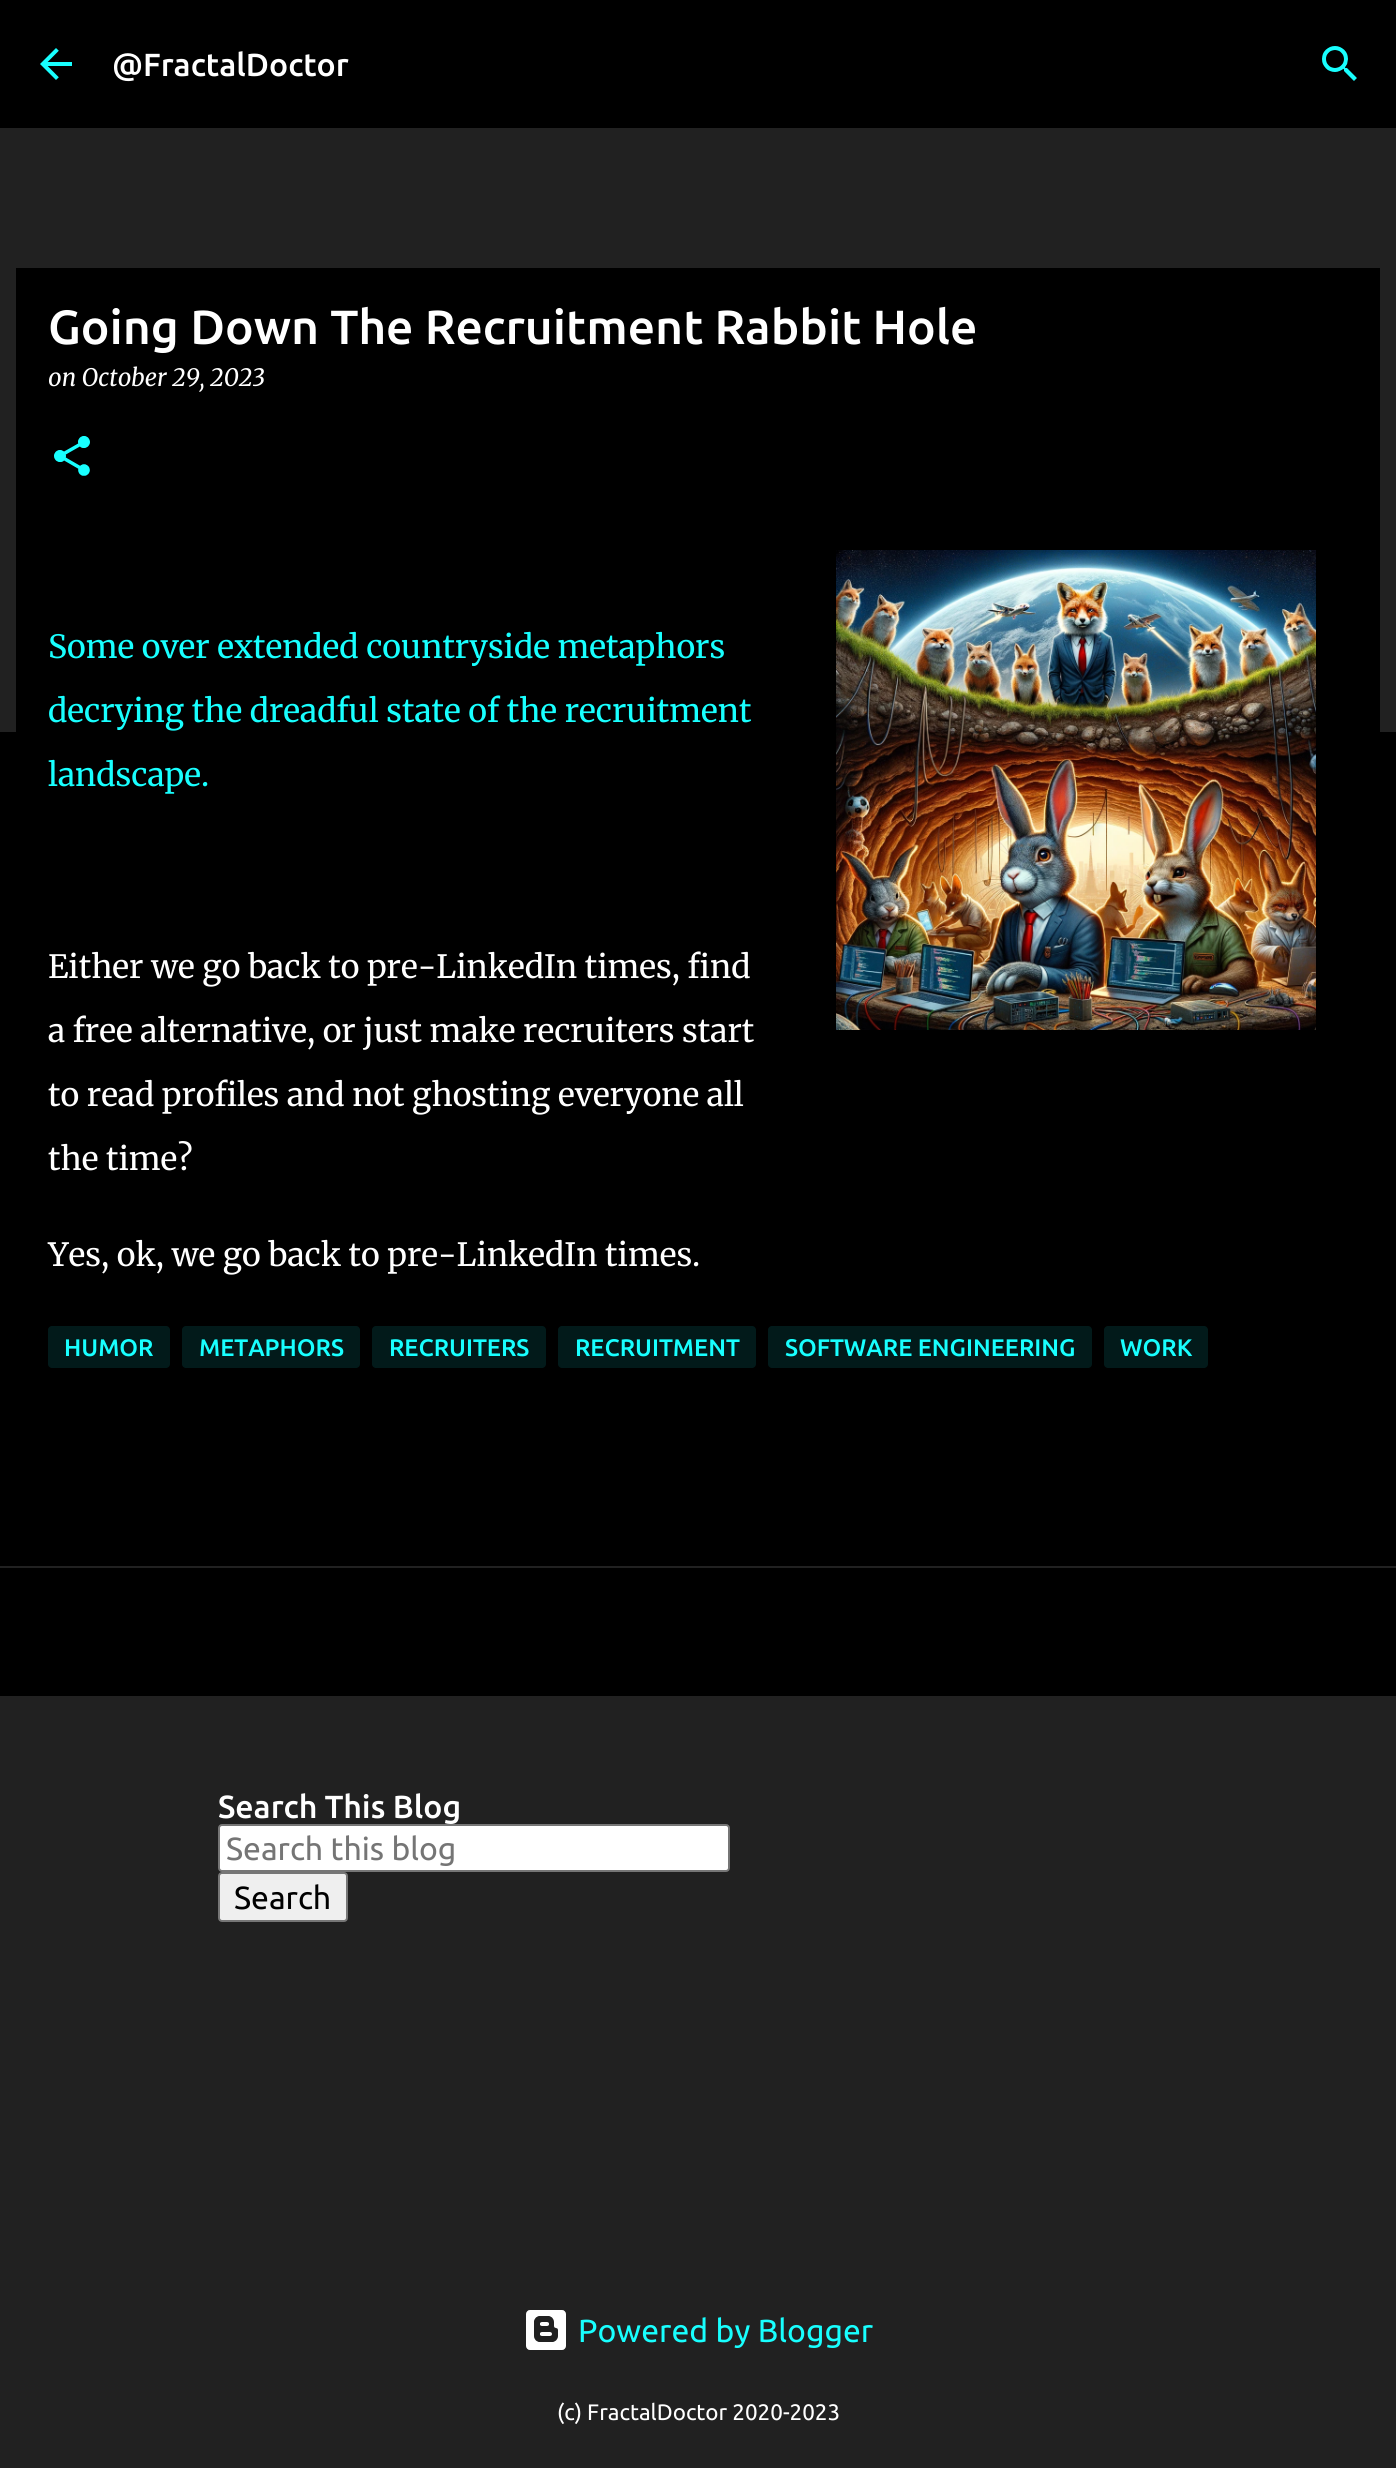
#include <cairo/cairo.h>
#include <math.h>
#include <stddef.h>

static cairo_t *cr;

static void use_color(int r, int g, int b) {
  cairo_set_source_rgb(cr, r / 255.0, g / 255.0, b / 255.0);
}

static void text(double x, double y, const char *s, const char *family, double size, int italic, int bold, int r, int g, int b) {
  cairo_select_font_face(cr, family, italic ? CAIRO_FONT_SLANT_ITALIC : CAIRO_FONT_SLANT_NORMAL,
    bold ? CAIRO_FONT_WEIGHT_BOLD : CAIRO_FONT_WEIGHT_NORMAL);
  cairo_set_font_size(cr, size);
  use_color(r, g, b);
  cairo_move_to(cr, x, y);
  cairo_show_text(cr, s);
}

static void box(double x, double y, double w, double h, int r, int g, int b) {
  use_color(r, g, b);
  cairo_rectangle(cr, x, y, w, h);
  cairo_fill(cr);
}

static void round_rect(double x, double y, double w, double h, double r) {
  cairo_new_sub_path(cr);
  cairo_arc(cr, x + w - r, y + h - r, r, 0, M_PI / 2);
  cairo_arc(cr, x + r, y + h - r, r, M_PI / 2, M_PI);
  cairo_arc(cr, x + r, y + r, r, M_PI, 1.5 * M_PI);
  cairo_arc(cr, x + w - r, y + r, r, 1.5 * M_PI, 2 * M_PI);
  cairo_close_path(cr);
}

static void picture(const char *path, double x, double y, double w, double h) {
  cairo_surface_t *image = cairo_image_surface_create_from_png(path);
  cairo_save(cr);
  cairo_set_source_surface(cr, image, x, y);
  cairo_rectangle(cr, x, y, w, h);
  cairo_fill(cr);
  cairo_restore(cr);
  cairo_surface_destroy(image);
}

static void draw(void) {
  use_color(33, 33, 33);
  cairo_paint(cr);
  box(0, 0, 1396, 128, 0, 0, 0);
  picture("img_01.png", 40, 48, 32, 32);
  picture("img_02.png", 1322, 46, 35, 35);
  box(0, 732, 1396, 834, 0, 0, 0);
  box(16, 268, 1364, 464, 0, 0, 0);
  picture("img_03.png", 54, 436, 36, 40);
  picture("img_04.png", 836, 550, 480, 480);
  use_color(2, 26, 26);
  round_rect(48, 1326, 122, 42, 4);
  cairo_fill(cr);
  round_rect(182, 1326, 178, 42, 4);
  cairo_fill(cr);
  round_rect(372, 1326, 174, 42, 4);
  cairo_fill(cr);
  round_rect(558, 1326, 198, 42, 4);
  cairo_fill(cr);
  round_rect(768, 1326, 324, 42, 4);
  cairo_fill(cr);
  round_rect(1104, 1326, 104, 42, 4);
  cairo_fill(cr);
  box(0, 1568, 1396, 128, 0, 0, 0);
  use_color(255, 255, 255);
  round_rect(219, 1825, 510, 46, 3);
  cairo_fill_preserve(cr);
  use_color(118, 118, 118);
  cairo_stroke(cr);
  use_color(239, 239, 239);
  round_rect(219, 1873, 128, 48, 3);
  cairo_fill_preserve(cr);
  use_color(118, 118, 118);
  cairo_stroke(cr);
  picture("img_05.png", 526, 2310, 40, 40);
  text(112, 76, "@FractalDoctor", "Ubuntu Medium", 32, 0, 0, 255, 255, 255);
  text(48, 344, "Going Down The Recruitment Rabbit Hole", "Ubuntu Medium", 48, 0, 0, 255, 255, 255);
  text(48, 386, "on October 29, 2023", "Merriweather", 24, 1, 0, 255, 255, 255);
  text(48, 658, "Some over extended countryside metaphors", "Merriweather Light", 32, 0, 0, 24, 255, 255);
  text(48, 722, "decrying the dreadful state of the recruitment", "Merriweather Light", 32, 0, 0, 24, 255, 255);
  text(48, 786, "landscape.", "Merriweather Light", 32, 0, 0, 24, 255, 255);
  text(48, 978, "Either we go back to pre-LinkedIn times, find", "Merriweather Light", 32, 0, 0, 255, 255, 255);
  text(48, 1042, "a free alternative, or just make recruiters start", "Merriweather Light", 32, 0, 0, 255, 255, 255);
  text(48, 1106, "to read profiles and not ghosting everyone all", "Merriweather Light", 32, 0, 0, 255, 255, 255);
  text(48, 1170, "the time?", "Merriweather Light", 32, 0, 0, 255, 255, 255);
  text(48, 1266, "Yes, ok, we go back to pre-LinkedIn times.", "Merriweather Light", 32, 0, 0, 255, 255, 255);
  text(64, 1356, "HUMOR", "Ubuntu Medium", 24, 0, 0, 24, 255, 255);
  text(199, 1356, "METAPHORS", "Ubuntu Medium", 24, 0, 0, 24, 255, 255);
  text(389, 1356, "RECRUITERS", "Ubuntu Medium", 24, 0, 0, 24, 255, 255);
  text(575, 1356, "RECRUITMENT", "Ubuntu Medium", 24, 0, 0, 24, 255, 255);
  text(785, 1356, "SOFTWARE ENGINEERING", "Ubuntu Medium", 24, 0, 0, 24, 255, 255);
  text(1120, 1356, "WORK", "Ubuntu Medium", 24, 0, 0, 24, 255, 255);
  text(218, 1818, "Search This Blog", "Ubuntu Medium", 32, 0, 0, 255, 255, 255);
  text(226, 1860, "Search this blog", "Ubuntu", 32, 0, 0, 117, 117, 117);
  text(234, 1909, "Search", "Ubuntu", 32, 0, 0, 0, 0, 0);
  text(578, 2342, "Powered by Blogger", "Ubuntu", 32, 0, 0, 24, 255, 255);
  text(557, 2420, "(c) FractalDoctor 2020-2023", "Ubuntu", 22.4, 0, 0, 255, 255, 255);
}

int main(void) {
  cairo_surface_t *surface = cairo_image_surface_create(CAIRO_FORMAT_RGB24, 1396, 2468);
  cr = cairo_create(surface);
  cairo_font_options_t *options = cairo_font_options_create();
  cairo_font_options_set_hint_metrics(options, CAIRO_HINT_METRICS_OFF);
  cairo_font_options_set_hint_style(options, CAIRO_HINT_STYLE_NONE);
  cairo_set_font_options(cr, options);
  cairo_set_miter_limit(cr, 4);
  draw();
  cairo_surface_write_to_png(surface, "out.png");
  cairo_font_options_destroy(options);
  cairo_destroy(cr);
  cairo_surface_destroy(surface);
  return 0;
}
